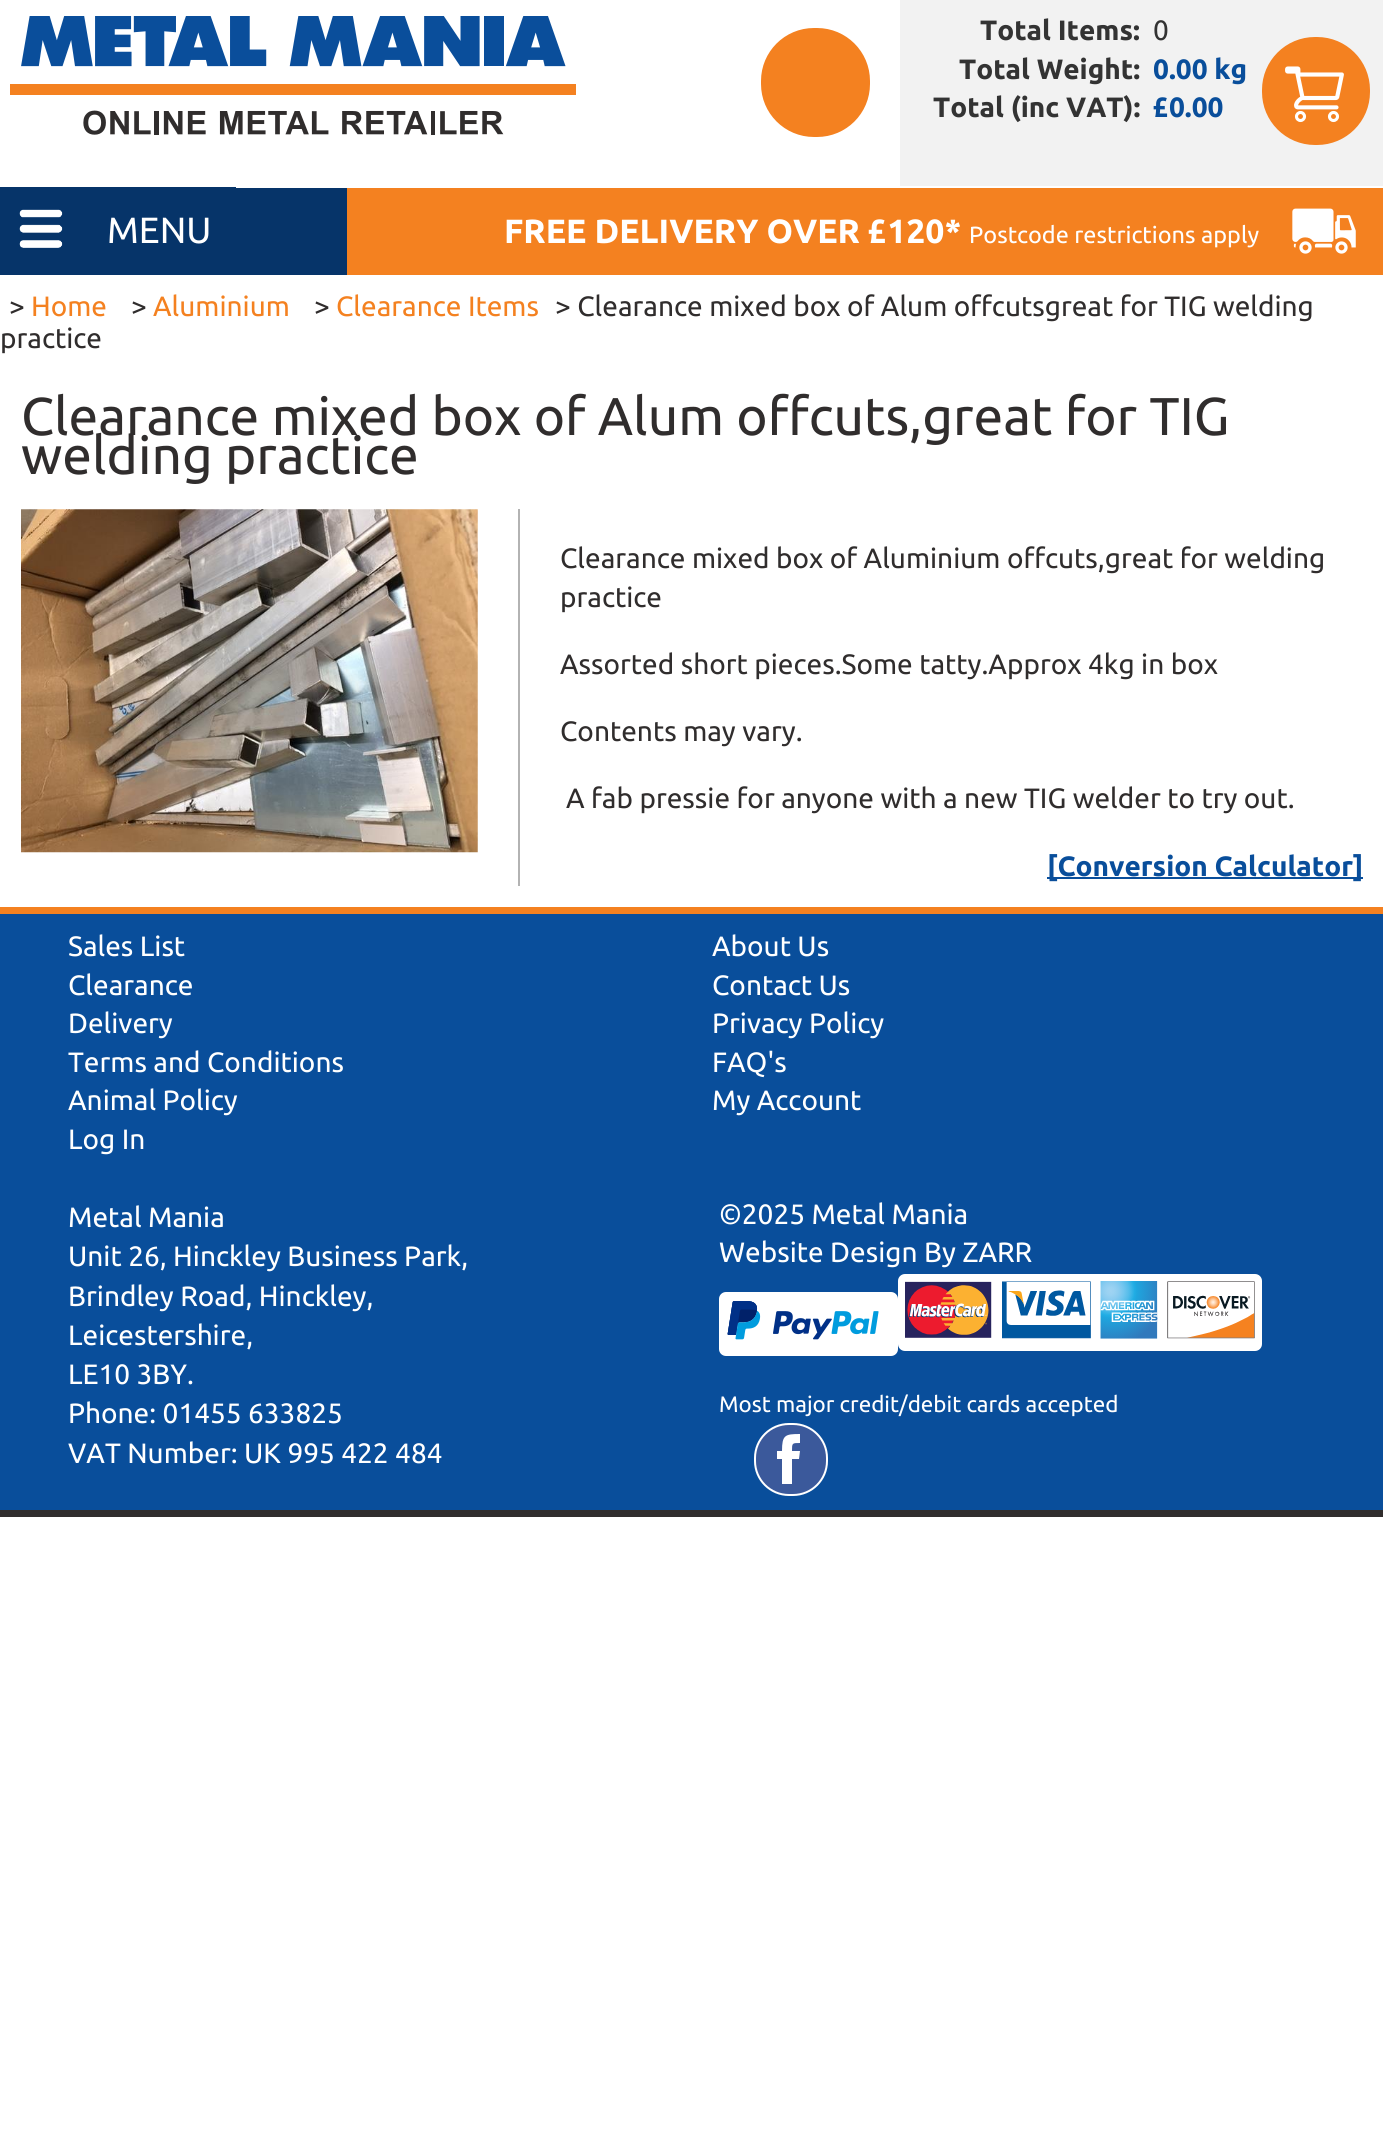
#include <cairo/cairo.h>
#include <math.h>
#include <stddef.h>

static cairo_t *cr;

static void use_color(int r, int g, int b) {
  cairo_set_source_rgb(cr, r / 255.0, g / 255.0, b / 255.0);
}

static void text(double x, double y, const char *s, const char *family, double size, int italic, int bold, int r, int g, int b) {
  cairo_select_font_face(cr, family, italic ? CAIRO_FONT_SLANT_ITALIC : CAIRO_FONT_SLANT_NORMAL,
    bold ? CAIRO_FONT_WEIGHT_BOLD : CAIRO_FONT_WEIGHT_NORMAL);
  cairo_set_font_size(cr, size);
  use_color(r, g, b);
  cairo_move_to(cr, x, y);
  cairo_show_text(cr, s);
}

static void box(double x, double y, double w, double h, int r, int g, int b) {
  use_color(r, g, b);
  cairo_rectangle(cr, x, y, w, h);
  cairo_fill(cr);
}

static void round_rect(double x, double y, double w, double h, double r) {
  cairo_new_sub_path(cr);
  cairo_arc(cr, x + w - r, y + h - r, r, 0, M_PI / 2);
  cairo_arc(cr, x + r, y + h - r, r, M_PI / 2, M_PI);
  cairo_arc(cr, x + r, y + r, r, M_PI, 1.5 * M_PI);
  cairo_arc(cr, x + w - r, y + r, r, 1.5 * M_PI, 2 * M_PI);
  cairo_close_path(cr);
}

static void picture(const char *path, double x, double y, double w, double h) {
  cairo_surface_t *image = cairo_image_surface_create_from_png(path);
  cairo_save(cr);
  cairo_set_source_surface(cr, image, x, y);
  cairo_rectangle(cr, x, y, w, h);
  cairo_fill(cr);
  cairo_restore(cr);
  cairo_surface_destroy(image);
}

static void draw(void) {
  use_color(255, 255, 255);
  cairo_paint(cr);
  picture("img_01.png", 10, 16, 566, 119);
  use_color(244, 129, 32);
  round_rect(762, 29, 107, 107, 52);
  cairo_fill_preserve(cr);
  cairo_stroke(cr);
  box(900, 0, 483, 186, 242, 242, 242);
  use_color(244, 129, 32);
  round_rect(1263, 38, 106, 106, 52);
  cairo_fill_preserve(cr);
  cairo_stroke(cr);
  picture("img_02.png", 1285, 66, 59, 57);
  box(0, 188, 347, 87, 6, 52, 105);
  box(0, 187, 236, 1, 6, 52, 105);
  picture("img_03.png", 19, 209, 44, 39);
  box(347, 188, 1036, 87, 244, 129, 32);
  picture("img_04.png", 1292, 208, 64, 46);
  picture("img_05.png", 21, 509, 457, 344);
  box(518, 509, 2, 377, 179, 179, 179);
  box(1047, 877, 316, 2, 9, 78, 155);
  box(0, 914, 1383, 596, 9, 78, 155);
  box(0, 907, 1383, 7, 244, 129, 32);
  box(0, 1510, 1383, 7, 48, 45, 45);
  use_color(255, 255, 255);
  round_rect(720, 1293, 177, 62, 6);
  cairo_fill_preserve(cr);
  cairo_stroke(cr);
  picture("img_06.png", 727, 1301, 152, 39);
  round_rect(899, 1275, 362, 75, 6);
  cairo_fill_preserve(cr);
  cairo_stroke(cr);
  picture("img_07.png", 905, 1281, 350, 58);
  use_color(59, 89, 155);
  round_rect(755, 1424, 72, 71, 34);
  cairo_fill_preserve(cr);
  use_color(255, 255, 255);
  cairo_stroke(cr);
  cairo_new_path(cr);
  cairo_move_to(cr, 792, 1484);
  cairo_line_to(cr, 782, 1484);
  cairo_line_to(cr, 782, 1459);
  cairo_line_to(cr, 777, 1459);
  cairo_line_to(cr, 777, 1451);
  cairo_line_to(cr, 782, 1451);
  cairo_curve_to(cr, 782, 1435, 785, 1434, 800, 1434);
  cairo_line_to(cr, 800, 1443);
  cairo_curve_to(cr, 792, 1443, 792, 1443, 792, 1451);
  cairo_line_to(cr, 800, 1451);
  cairo_line_to(cr, 799, 1459);
  cairo_line_to(cr, 792, 1459);
  cairo_close_path(cr);
  cairo_fill(cr);
  text(980, 40, "Total Items:", "Ubuntu", 28, 0, 1, 51, 51, 51);
  text(1153, 40, "0", "Ubuntu", 28, 0, 0, 51, 51, 51);
  text(959, 79, "Total Weight:", "Ubuntu", 28, 0, 1, 51, 51, 51);
  text(1153, 79, "0.00 kg", "Ubuntu", 28, 0, 1, 9, 78, 155);
  text(933, 117, "Total (inc VAT):", "Ubuntu", 28, 0, 1, 51, 51, 51);
  text(1153, 117, "£0.00", "Ubuntu", 28, 0, 1, 9, 78, 155);
  text(107, 243, "MENU", "Ubuntu", 36.5, 0, 0, 255, 255, 255);
  text(504, 243, "FREE DELIVERY OVER £120*", "Ubuntu", 33.6, 0, 1, 255, 255, 255);
  text(969, 243, "Postcode restrictions apply", "Ubuntu", 23.5, 0, 0, 255, 255, 255);
  text(9, 316, ">", "Ubuntu", 28, 0, 0, 48, 45, 45);
  text(31, 316, "Home", "Ubuntu", 28, 0, 0, 244, 129, 32);
  text(131, 316, ">", "Ubuntu", 28, 0, 0, 48, 45, 45);
  text(153, 316, "Aluminium", "Ubuntu", 28, 0, 0, 244, 129, 32);
  text(314, 316, ">", "Ubuntu", 28, 0, 0, 48, 45, 45);
  text(336, 316, "Clearance Items", "Ubuntu", 28, 0, 0, 244, 129, 32);
  text(555, 316, "> Clearance mixed box of Alum offcutsgreat for TIG welding", "Ubuntu", 28, 0, 0, 48, 45, 45);
  text(0, 348, "practice", "Ubuntu", 28, 0, 0, 48, 45, 45);
  text(21, 435, "Clearance mixed box of Alum offcuts,great for TIG", "Ubuntu", 53.2, 0, 0, 48, 45, 45);
  text(21, 474, "welding practice", "Ubuntu", 53.2, 0, 0, 48, 45, 45);
  text(560, 568, "Clearance mixed box of Aluminium offcuts,great for welding", "Ubuntu", 28, 0, 0, 48, 45, 45);
  text(560, 607, "practice", "Ubuntu", 28, 0, 0, 48, 45, 45);
  text(560, 674, "Assorted short pieces.Some tatty.Approx 4kg in box", "Ubuntu", 28, 0, 0, 48, 45, 45);
  text(560, 741, "Contents may vary.", "Ubuntu", 28, 0, 0, 48, 45, 45);
  text(566, 808, "A fab pressie for anyone with a new TIG welder to try out.", "Ubuntu", 28, 0, 0, 48, 45, 45);
  text(1047, 876, "[Conversion Calculator]", "Ubuntu", 28, 0, 1, 9, 78, 155);
  text(68, 956, "Sales List", "Ubuntu", 28, 0, 0, 255, 255, 255);
  text(712, 956, "About Us", "Ubuntu", 28, 0, 0, 255, 255, 255);
  text(68, 995, "Clearance", "Ubuntu", 28, 0, 0, 255, 255, 255);
  text(712, 995, "Contact Us", "Ubuntu", 28, 0, 0, 255, 255, 255);
  text(68, 1033, "Delivery", "Ubuntu", 28, 0, 0, 255, 255, 255);
  text(712, 1033, "Privacy Policy", "Ubuntu", 28, 0, 0, 255, 255, 255);
  text(68, 1072, "Terms and Conditions", "Ubuntu", 28, 0, 0, 255, 255, 255);
  text(712, 1072, "FAQ's", "Ubuntu", 28, 0, 0, 255, 255, 255);
  text(68, 1110, "Animal Policy", "Ubuntu", 28, 0, 0, 255, 255, 255);
  text(712, 1110, "My Account", "Ubuntu", 28, 0, 0, 255, 255, 255);
  text(68, 1149, "Log In", "Ubuntu", 28, 0, 0, 255, 255, 255);
  text(68, 1227, "Metal Mania", "Ubuntu", 28, 0, 0, 255, 255, 255);
  text(68, 1266, "Unit 26, Hinckley Business Park,", "Ubuntu", 28, 0, 0, 255, 255, 255);
  text(68, 1306, "Brindley Road, Hinckley,", "Ubuntu", 28, 0, 0, 255, 255, 255);
  text(68, 1345, "Leicestershire,", "Ubuntu", 28, 0, 0, 255, 255, 255);
  text(68, 1384, "LE10 3BY.", "Ubuntu", 28, 0, 0, 255, 255, 255);
  text(68, 1423, "Phone: 01455 633825", "Ubuntu", 28, 0, 0, 255, 255, 255);
  text(68, 1463, "VAT Number: UK 995 422 484", "Ubuntu", 28, 0, 0, 255, 255, 255);
  text(719, 1224, "©2025 Metal Mania", "Ubuntu", 28, 0, 0, 255, 255, 255);
  text(719, 1262, "Website Design By ZARR", "Ubuntu", 28, 0, 0, 255, 255, 255);
  text(719, 1412, "Most major credit/debit cards accepted", "Ubuntu", 22.4, 0, 0, 255, 255, 255);
}

int main(void) {
  cairo_surface_t *surface = cairo_image_surface_create(CAIRO_FORMAT_RGB24, 1383, 2135);
  cr = cairo_create(surface);
  cairo_font_options_t *options = cairo_font_options_create();
  cairo_font_options_set_hint_metrics(options, CAIRO_HINT_METRICS_OFF);
  cairo_font_options_set_hint_style(options, CAIRO_HINT_STYLE_NONE);
  cairo_set_font_options(cr, options);
  cairo_set_miter_limit(cr, 4);
  draw();
  cairo_surface_write_to_png(surface, "out.png");
  cairo_font_options_destroy(options);
  cairo_destroy(cr);
  cairo_surface_destroy(surface);
  return 0;
}
